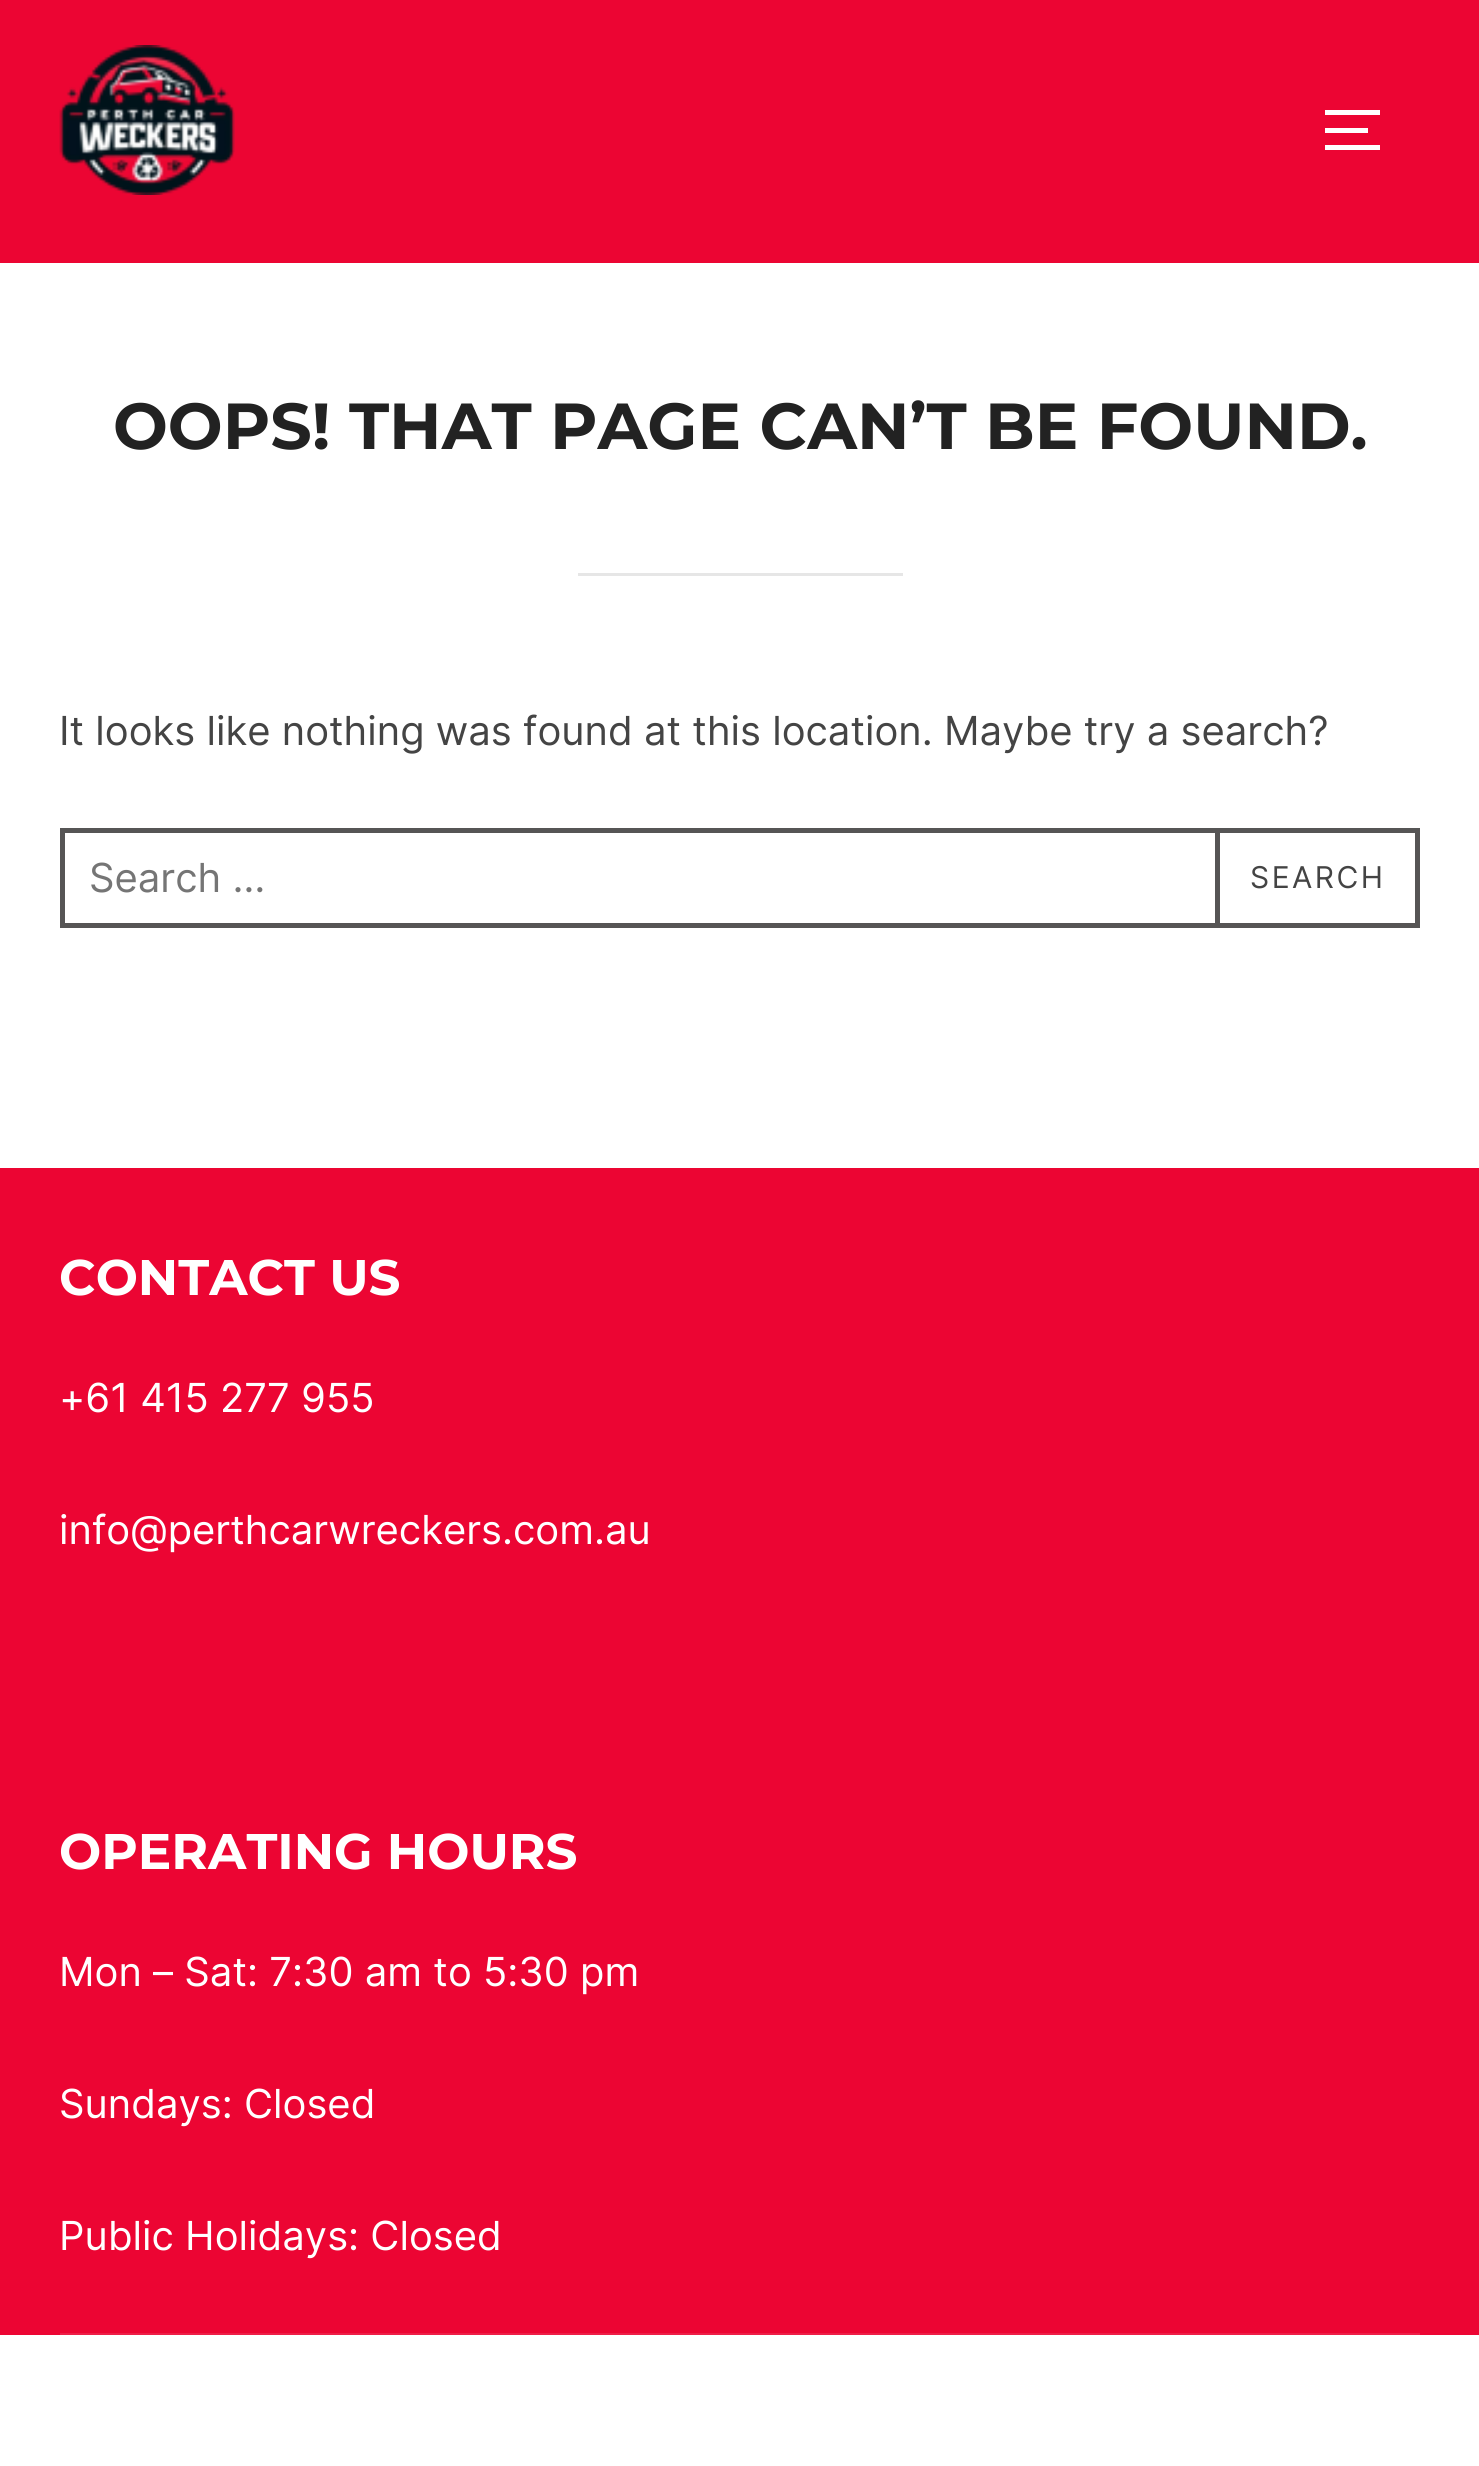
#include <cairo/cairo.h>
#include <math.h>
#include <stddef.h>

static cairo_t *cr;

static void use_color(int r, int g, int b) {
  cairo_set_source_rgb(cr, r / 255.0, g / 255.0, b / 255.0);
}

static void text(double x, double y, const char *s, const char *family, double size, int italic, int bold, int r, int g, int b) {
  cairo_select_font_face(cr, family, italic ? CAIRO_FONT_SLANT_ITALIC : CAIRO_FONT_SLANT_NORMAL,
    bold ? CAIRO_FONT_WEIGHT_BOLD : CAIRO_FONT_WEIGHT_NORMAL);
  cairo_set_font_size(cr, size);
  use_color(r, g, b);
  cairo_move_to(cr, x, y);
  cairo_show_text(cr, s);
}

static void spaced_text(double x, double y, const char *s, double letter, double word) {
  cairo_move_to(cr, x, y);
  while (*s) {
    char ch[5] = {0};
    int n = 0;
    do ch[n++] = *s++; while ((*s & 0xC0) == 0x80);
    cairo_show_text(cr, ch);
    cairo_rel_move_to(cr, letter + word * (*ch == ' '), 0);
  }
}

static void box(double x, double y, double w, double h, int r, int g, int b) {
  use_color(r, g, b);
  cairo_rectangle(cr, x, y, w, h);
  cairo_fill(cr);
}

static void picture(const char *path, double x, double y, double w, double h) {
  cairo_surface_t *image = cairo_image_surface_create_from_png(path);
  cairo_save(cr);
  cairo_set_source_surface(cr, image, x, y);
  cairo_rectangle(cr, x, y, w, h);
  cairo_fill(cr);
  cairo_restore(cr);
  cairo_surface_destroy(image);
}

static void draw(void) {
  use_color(255, 255, 255);
  cairo_paint(cr);
  box(0, 0, 1479, 263, 236, 5, 51);
  picture("img_01.png", 59, 45, 176, 150);
  box(1325, 110, 55, 5, 255, 255, 255);
  box(1325, 128, 43, 5, 255, 255, 255);
  box(1325, 145, 55, 5, 255, 255, 255);
  box(578, 573, 325, 3, 230, 230, 230);
  cairo_rectangle(cr, 62.5, 830.5, 1355, 95);
  use_color(86, 85, 85);
  cairo_set_line_width(cr, 5);
  cairo_stroke(cr);
  cairo_rectangle(cr, 1217.5, 830.5, 200, 95);
  cairo_stroke(cr);
  box(0, 1168, 1479, 1167, 236, 5, 51);
  box(60, 2333, 1360, 2, 238, 30, 71);
  text(113, 449, "OOPS! THAT PAGE CAN’T BE FOUND.", "Montserrat", 65, 0, 1, 34, 34, 34);
  text(59, 745, "It looks like nothing was found at this location. Maybe try a search?", "Inter", 40, 0, 0, 68, 68, 68);
  text(89, 892, "Search …", "Inter", 40, 0, 0, 117, 117, 117);
  cairo_set_font_size(cr, 30);
  use_color(68, 68, 68);
  spaced_text(1250, 888, "SEARCH", 2.5, 0);
  text(59, 1295, "CONTACT US", "Montserrat", 50, 0, 1, 255, 255, 255);
  text(59, 1412, "+61 415 277 955", "Inter", 40, 0, 0, 255, 255, 255);
  text(59, 1544, "info@perthcarwreckers.com.au", "Inter", 40, 0, 0, 255, 255, 255);
  text(59, 1869, "OPERATING HOURS", "Montserrat", 50, 0, 1, 255, 255, 255);
  text(59, 1986, "Mon – Sat: 7:30 am to 5:30 pm", "Inter", 40, 0, 0, 255, 255, 255);
  text(59, 2118, "Sundays: Closed", "Inter", 40, 0, 0, 255, 255, 255);
  text(59, 2250, "Public Holidays: Closed", "Inter", 40, 0, 0, 255, 255, 255);
}

int main(void) {
  cairo_surface_t *surface = cairo_image_surface_create(CAIRO_FORMAT_RGB24, 1479, 2466);
  cr = cairo_create(surface);
  cairo_font_options_t *options = cairo_font_options_create();
  cairo_font_options_set_hint_metrics(options, CAIRO_HINT_METRICS_OFF);
  cairo_font_options_set_hint_style(options, CAIRO_HINT_STYLE_NONE);
  cairo_set_font_options(cr, options);
  cairo_set_miter_limit(cr, 4);
  draw();
  cairo_surface_write_to_png(surface, "out.png");
  cairo_font_options_destroy(options);
  cairo_destroy(cr);
  cairo_surface_destroy(surface);
  return 0;
}
